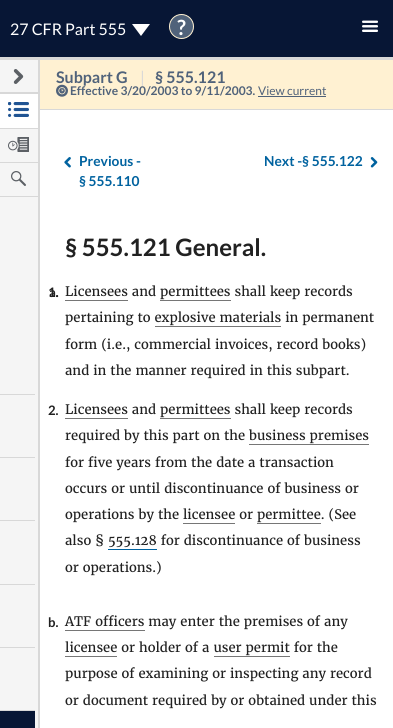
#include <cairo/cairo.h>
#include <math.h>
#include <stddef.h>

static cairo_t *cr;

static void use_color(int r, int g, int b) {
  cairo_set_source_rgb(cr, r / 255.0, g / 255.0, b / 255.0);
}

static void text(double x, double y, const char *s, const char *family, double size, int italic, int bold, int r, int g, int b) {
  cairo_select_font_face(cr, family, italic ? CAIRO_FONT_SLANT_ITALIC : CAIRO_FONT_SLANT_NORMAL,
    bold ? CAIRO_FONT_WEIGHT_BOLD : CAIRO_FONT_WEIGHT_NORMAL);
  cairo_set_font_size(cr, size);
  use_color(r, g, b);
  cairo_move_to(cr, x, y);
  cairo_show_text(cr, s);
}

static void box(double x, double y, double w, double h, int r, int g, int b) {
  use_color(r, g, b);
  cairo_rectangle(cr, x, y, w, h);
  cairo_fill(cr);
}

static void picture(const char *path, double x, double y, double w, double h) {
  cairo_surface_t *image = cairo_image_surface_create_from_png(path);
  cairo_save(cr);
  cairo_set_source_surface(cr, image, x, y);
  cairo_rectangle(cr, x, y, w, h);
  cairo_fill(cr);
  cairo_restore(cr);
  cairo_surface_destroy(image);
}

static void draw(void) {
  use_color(255, 255, 255);
  cairo_paint(cr);
  box(0, 0, 393, 57, 7, 22, 53);
  box(0, 57, 393, 3, 216, 216, 216);
  use_color(255, 255, 255);
  cairo_new_path(cr);
  cairo_move_to(cr, 132, 24);
  cairo_line_to(cr, 150, 24);
  cairo_line_to(cr, 141, 36);
  cairo_close_path(cr);
  cairo_fill(cr);
  use_color(80, 98, 122);
  cairo_arc(cr, 181.5, 26.5, 12, 0, 2 * M_PI);
  cairo_fill_preserve(cr);
  use_color(255, 241, 210);
  cairo_set_line_width(cr, 1);
  cairo_stroke(cr);
  picture("img_01.png", 362, 20, 16, 12);
  box(40, 60, 353, 49, 255, 241, 210);
  box(40, 109, 353, 1, 216, 216, 216);
  box(0, 60, 38, 136, 245, 245, 245);
  box(38, 60, 2, 668, 216, 216, 216);
  box(0, 92, 38, 2, 216, 216, 216);
  picture("img_02.png", 13, 69, 11, 15);
  box(0, 128, 38, 1, 216, 216, 216);
  box(0, 94, 38, 34, 255, 255, 255);
  picture("img_03.png", 8, 102, 21, 15);
  box(0, 162, 38, 1, 216, 216, 216);
  picture("img_04.png", 8, 137, 21, 15);
  box(0, 196, 38, 1, 216, 216, 216);
  picture("img_05.png", 11, 171, 15, 15);
  box(258, 96, 68, 1, 80, 98, 122);
  box(0, 197, 38, 531, 245, 245, 245);
  box(0, 394, 35, 1, 216, 216, 216);
  box(0, 457, 35, 1, 216, 216, 216);
  box(0, 520, 35, 1, 216, 216, 216);
  box(0, 584, 35, 1, 216, 216, 216);
  box(0, 647, 35, 1, 216, 216, 216);
  box(0, 710, 35, 1, 216, 216, 216);
  box(0, 711, 35, 17, 7, 22, 53);
  picture("img_07.png", 64, 157, 7, 11);
  picture("img_08.png", 370, 157, 8, 11);
  box(65, 300, 63, 1, 118, 118, 118);
  box(160, 300, 71, 1, 118, 118, 118);
  box(155, 326, 126, 1, 118, 118, 118);
  box(65, 418, 63, 1, 118, 118, 118);
  box(160, 418, 71, 1, 118, 118, 118);
  box(249, 444, 120, 1, 118, 118, 118);
  box(183, 523, 52, 1, 118, 118, 118);
  box(257, 523, 64, 1, 118, 118, 118);
  box(108, 549, 49, 1, 0, 98, 159);
  box(65, 630, 80, 1, 118, 118, 118);
  box(65, 656, 52, 1, 118, 118, 118);
  box(214, 656, 76, 1, 118, 118, 118);
  text(10, 35, "27 CFR Part 555", "Lato", 16, 0, 0, 255, 255, 255);
  text(177, 35, "?", "Lato", 21, 0, 1, 255, 255, 255);
  text(56, 83, "Subpart G", "Lato", 16, 0, 1, 80, 98, 122);
  text(140, 83, "|", "Lato", 16, 0, 0, 216, 216, 216);
  text(155, 83, "§ 555.121", "Lato", 16, 0, 1, 80, 98, 122);
  picture("img_06.png", 56, 84, 12, 13);
  text(70, 95, "Effective 3/20/2003 to 9/11/2003.", "Lato", 12, 0, 1, 80, 98, 122);
  text(258, 95, "View current", "Lato", 12, 0, 0, 80, 98, 122);
  text(79, 166, "Previous -", "Lato", 13.75, 0, 1, 0, 98, 159);
  text(79, 186, "§ 555.110", "Lato", 13.75, 0, 1, 0, 98, 159);
  text(264, 166, "Next -§ 555.122", "Lato", 13.75, 0, 1, 0, 98, 159);
  text(65, 256, "§ 555.121 General.", "Lato", 24, 0, 1, 33, 33, 33);
  text(65, 296, "Licensees and permittees shall keep records", "Merriweather", 13.1, 0, 0, 33, 33, 33);
  text(65, 322, "pertaining to explosive materials in permanent", "Merriweather", 13.1, 0, 0, 33, 33, 33);
  text(65, 349, "form (i.e., commercial invoices, record books)", "Merriweather", 13.1, 0, 0, 33, 33, 33);
  text(65, 375, "and in the manner required in this subpart.", "Merriweather", 13.1, 0, 0, 33, 33, 33);
  text(48, 415, "2.", "Lato", 13.1, 0, 1, 33, 33, 33);
  text(65, 414, "Licensees and permittees shall keep records", "Merriweather", 13.1, 0, 0, 33, 33, 33);
  text(65, 440, "required by this part on the business premises", "Merriweather", 13.1, 0, 0, 33, 33, 33);
  text(65, 467, "for five years from the date a transaction", "Merriweather", 13.1, 0, 0, 33, 33, 33);
  text(65, 493, "occurs or until discontinuance of business or", "Merriweather", 13.1, 0, 0, 33, 33, 33);
  text(65, 519, "operations by the licensee or permittee. (See", "Merriweather", 13.1, 0, 0, 33, 33, 33);
  text(65, 545, "also § 555.128 for discontinuance of business", "Merriweather", 13.1, 0, 0, 33, 33, 33);
  text(65, 572, "or operations.)", "Merriweather", 13.1, 0, 0, 33, 33, 33);
  text(49, 297, "a.", "Lato", 13.1, 0, 1, 33, 33, 33);
  text(48, 297, "1.", "Lato", 13.1, 0, 1, 33, 33, 33);
  text(48, 627, "b.", "Lato", 13.1, 0, 1, 33, 33, 33);
  text(65, 626, "ATF officers may enter the premises of any", "Merriweather", 13.1, 0, 0, 33, 33, 33);
  text(65, 652, "licensee or holder of a user permit for the", "Merriweather", 13.1, 0, 0, 33, 33, 33);
  text(65, 678, "purpose of examining or inspecting any record", "Merriweather", 13.1, 0, 0, 33, 33, 33);
  text(65, 705, "or document required by or obtained under this", "Merriweather", 13.1, 0, 0, 33, 33, 33);
}

int main(void) {
  cairo_surface_t *surface = cairo_image_surface_create(CAIRO_FORMAT_RGB24, 393, 728);
  cr = cairo_create(surface);
  cairo_font_options_t *options = cairo_font_options_create();
  cairo_font_options_set_hint_metrics(options, CAIRO_HINT_METRICS_OFF);
  cairo_font_options_set_hint_style(options, CAIRO_HINT_STYLE_NONE);
  cairo_set_font_options(cr, options);
  cairo_set_miter_limit(cr, 4);
  draw();
  cairo_surface_write_to_png(surface, "out.png");
  cairo_font_options_destroy(options);
  cairo_destroy(cr);
  cairo_surface_destroy(surface);
  return 0;
}
